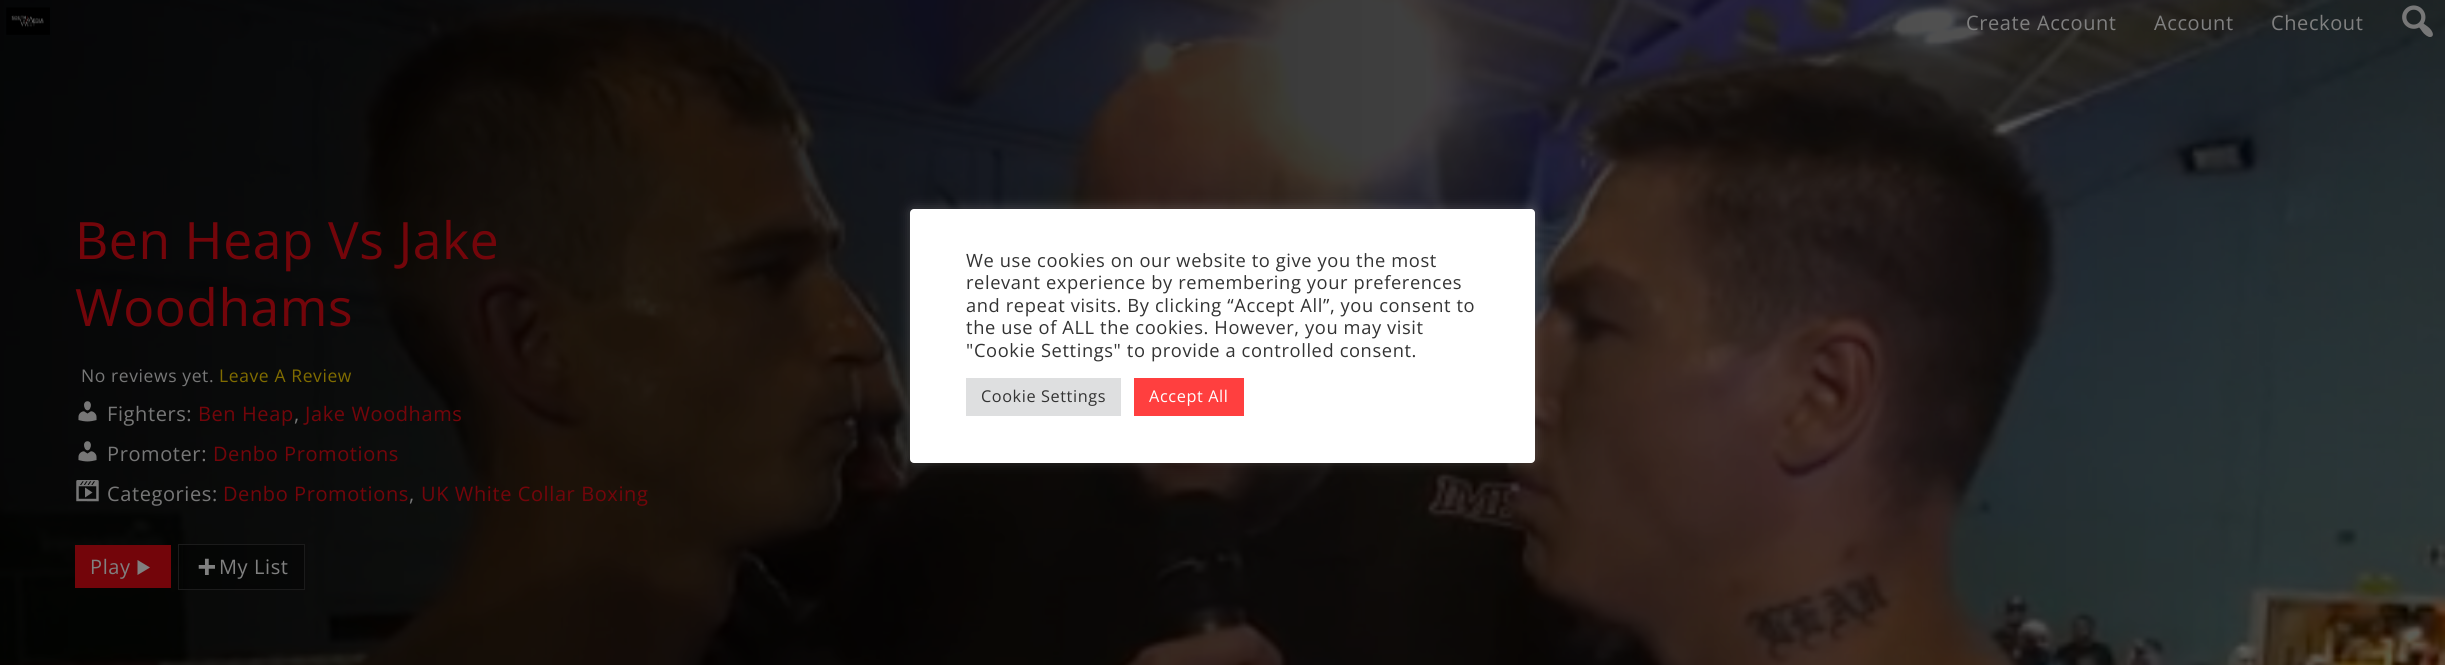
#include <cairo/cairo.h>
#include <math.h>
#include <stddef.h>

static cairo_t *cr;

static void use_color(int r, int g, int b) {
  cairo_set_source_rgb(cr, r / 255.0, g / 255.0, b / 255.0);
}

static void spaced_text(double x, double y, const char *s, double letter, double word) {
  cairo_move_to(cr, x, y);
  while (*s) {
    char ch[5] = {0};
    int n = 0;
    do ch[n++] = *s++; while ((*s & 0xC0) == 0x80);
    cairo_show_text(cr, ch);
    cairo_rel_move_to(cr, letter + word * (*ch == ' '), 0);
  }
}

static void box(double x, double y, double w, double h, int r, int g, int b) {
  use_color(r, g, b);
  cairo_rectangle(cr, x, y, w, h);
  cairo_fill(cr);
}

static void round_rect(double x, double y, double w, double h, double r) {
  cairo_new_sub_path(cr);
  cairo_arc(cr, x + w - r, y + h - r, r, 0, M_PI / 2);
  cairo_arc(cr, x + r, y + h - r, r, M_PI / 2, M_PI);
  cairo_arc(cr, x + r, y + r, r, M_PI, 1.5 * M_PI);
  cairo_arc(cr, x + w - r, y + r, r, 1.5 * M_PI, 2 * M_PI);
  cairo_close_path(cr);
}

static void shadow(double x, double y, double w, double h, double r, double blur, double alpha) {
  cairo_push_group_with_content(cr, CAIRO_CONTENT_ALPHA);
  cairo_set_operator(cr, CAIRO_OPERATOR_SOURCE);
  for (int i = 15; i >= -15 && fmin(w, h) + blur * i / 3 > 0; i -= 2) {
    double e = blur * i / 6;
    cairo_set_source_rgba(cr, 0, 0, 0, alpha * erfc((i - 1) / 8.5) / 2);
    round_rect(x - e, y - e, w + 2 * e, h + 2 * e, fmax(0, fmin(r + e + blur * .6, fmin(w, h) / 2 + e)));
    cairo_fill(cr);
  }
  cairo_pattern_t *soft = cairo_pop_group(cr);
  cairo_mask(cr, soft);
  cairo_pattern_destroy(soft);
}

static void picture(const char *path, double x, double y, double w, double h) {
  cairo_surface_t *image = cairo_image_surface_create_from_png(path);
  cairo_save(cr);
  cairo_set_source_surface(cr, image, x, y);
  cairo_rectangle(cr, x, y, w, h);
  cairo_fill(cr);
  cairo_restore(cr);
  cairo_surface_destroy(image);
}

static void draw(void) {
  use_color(255, 255, 255);
  cairo_paint(cr);
  picture("img_03.png", 0, 0, 2445, 665);
  picture("img_01.png", 6, 7, 44, 28);
  picture("img_02.png", 2402, 5, 31, 32);
  picture("img_04.png", 78, 401, 19, 21);
  picture("img_05.png", 78, 441, 19, 21);
  picture("img_06.png", 76, 480, 23, 22);
  box(75, 545, 96, 43, 115, 5, 10);
  use_color(128, 128, 128);
  cairo_new_path(cr);
  cairo_move_to(cr, 137.5, 560);
  cairo_line_to(cr, 150, 567.5);
  cairo_line_to(cr, 137.5, 575);
  cairo_close_path(cr);
  cairo_fill(cr);
  cairo_set_source_rgba(cr, 0, 0, 0, 0.4);
  cairo_rectangle(cr, 183, 545, 121, 44);
  cairo_fill(cr);
  cairo_rectangle(cr, 178.5, 544.5, 126, 45);
  use_color(27, 27, 27);
  cairo_set_line_width(cr, 1);
  cairo_stroke(cr);
  picture("img_07.png", 198, 558, 17, 17);
  use_color(172, 171, 171);
  shadow(910, 208, 625, 253, 4, 6, 0.3);
  use_color(255, 255, 255);
  round_rect(910, 209, 625, 254, 4);
  cairo_fill(cr);
  box(966, 378, 155, 38, 222, 223, 224);
  box(1134, 378, 110, 38, 255, 63, 63);
  cairo_select_font_face(cr, "Open Sans", CAIRO_FONT_SLANT_NORMAL, CAIRO_FONT_WEIGHT_NORMAL);
  cairo_set_font_size(cr, 20);
  use_color(128, 128, 128);
  spaced_text(1966, 30, "Create Account", 0.6, 0);
  spaced_text(2154, 30, "Account", 0.6, 0);
  spaced_text(2271, 30, "Checkout", 0.6, 0);
  cairo_set_font_size(cr, 51.5);
  use_color(115, 5, 10);
  spaced_text(75, 259, "Ben Heap Vs Jake", 0.6, 0);
  spaced_text(75, 326, "Woodhams", 0.6, 0);
  cairo_set_font_size(cr, 17.5);
  use_color(119, 119, 119);
  spaced_text(81, 382, "No reviews yet.", 0.6, 0);
  use_color(128, 108, 0);
  spaced_text(219, 382, "Leave A Review", 0.6, 0);
  cairo_set_font_size(cr, 20);
  use_color(119, 119, 119);
  spaced_text(107, 421, "Fighters:", 0.6, 0);
  use_color(115, 5, 10);
  spaced_text(198, 421, "Ben Heap", 0.6, 0);
  use_color(119, 119, 119);
  spaced_text(294, 421, ",", 0.6, 0);
  use_color(115, 5, 10);
  spaced_text(305, 421, "Jake Woodhams", 0.6, 0);
  use_color(119, 119, 119);
  spaced_text(107, 461, "Promoter:", 0.6, 0);
  use_color(115, 5, 10);
  spaced_text(213, 461, "Denbo Promotions", 0.6, 0);
  use_color(119, 119, 119);
  spaced_text(107, 501, "Categories:", 0.6, 0);
  use_color(115, 5, 10);
  spaced_text(223, 501, "Denbo Promotions", 0.6, 0);
  use_color(119, 119, 119);
  spaced_text(409, 501, ",", 0.6, 0);
  use_color(115, 5, 10);
  spaced_text(421, 501, "UK White Collar Boxing", 0.6, 0);
  use_color(128, 128, 128);
  spaced_text(90, 574, "Play", 0.6, 0);
  spaced_text(219, 574, "My List", 0.6, 0);
  cairo_set_font_size(cr, 18.3);
  use_color(51, 51, 51);
  spaced_text(966, 267, "We use cookies on our website to give you the most", 0.6, 0);
  spaced_text(966, 289, "relevant experience by remembering your preferences", 0.6, 0);
  spaced_text(966, 312, "and repeat visits. By clicking “Accept All”, you consent to", 0.6, 0);
  spaced_text(966, 334, "the use of ALL the cookies. However, you may visit", 0.6, 0);
  spaced_text(966, 357, "\"Cookie Settings\" to provide a controlled consent.", 0.6, 0);
  cairo_set_font_size(cr, 16.25);
  spaced_text(981, 402, "Cookie Settings", 0.6, 0);
  use_color(255, 255, 255);
  spaced_text(1149, 402, "Accept All", 0.6, 0);
}

int main(void) {
  cairo_surface_t *surface = cairo_image_surface_create(CAIRO_FORMAT_RGB24, 2445, 665);
  cr = cairo_create(surface);
  cairo_font_options_t *options = cairo_font_options_create();
  cairo_font_options_set_hint_metrics(options, CAIRO_HINT_METRICS_OFF);
  cairo_font_options_set_hint_style(options, CAIRO_HINT_STYLE_NONE);
  cairo_set_font_options(cr, options);
  cairo_set_miter_limit(cr, 4);
  draw();
  cairo_surface_write_to_png(surface, "out.png");
  cairo_font_options_destroy(options);
  cairo_destroy(cr);
  cairo_surface_destroy(surface);
  return 0;
}
